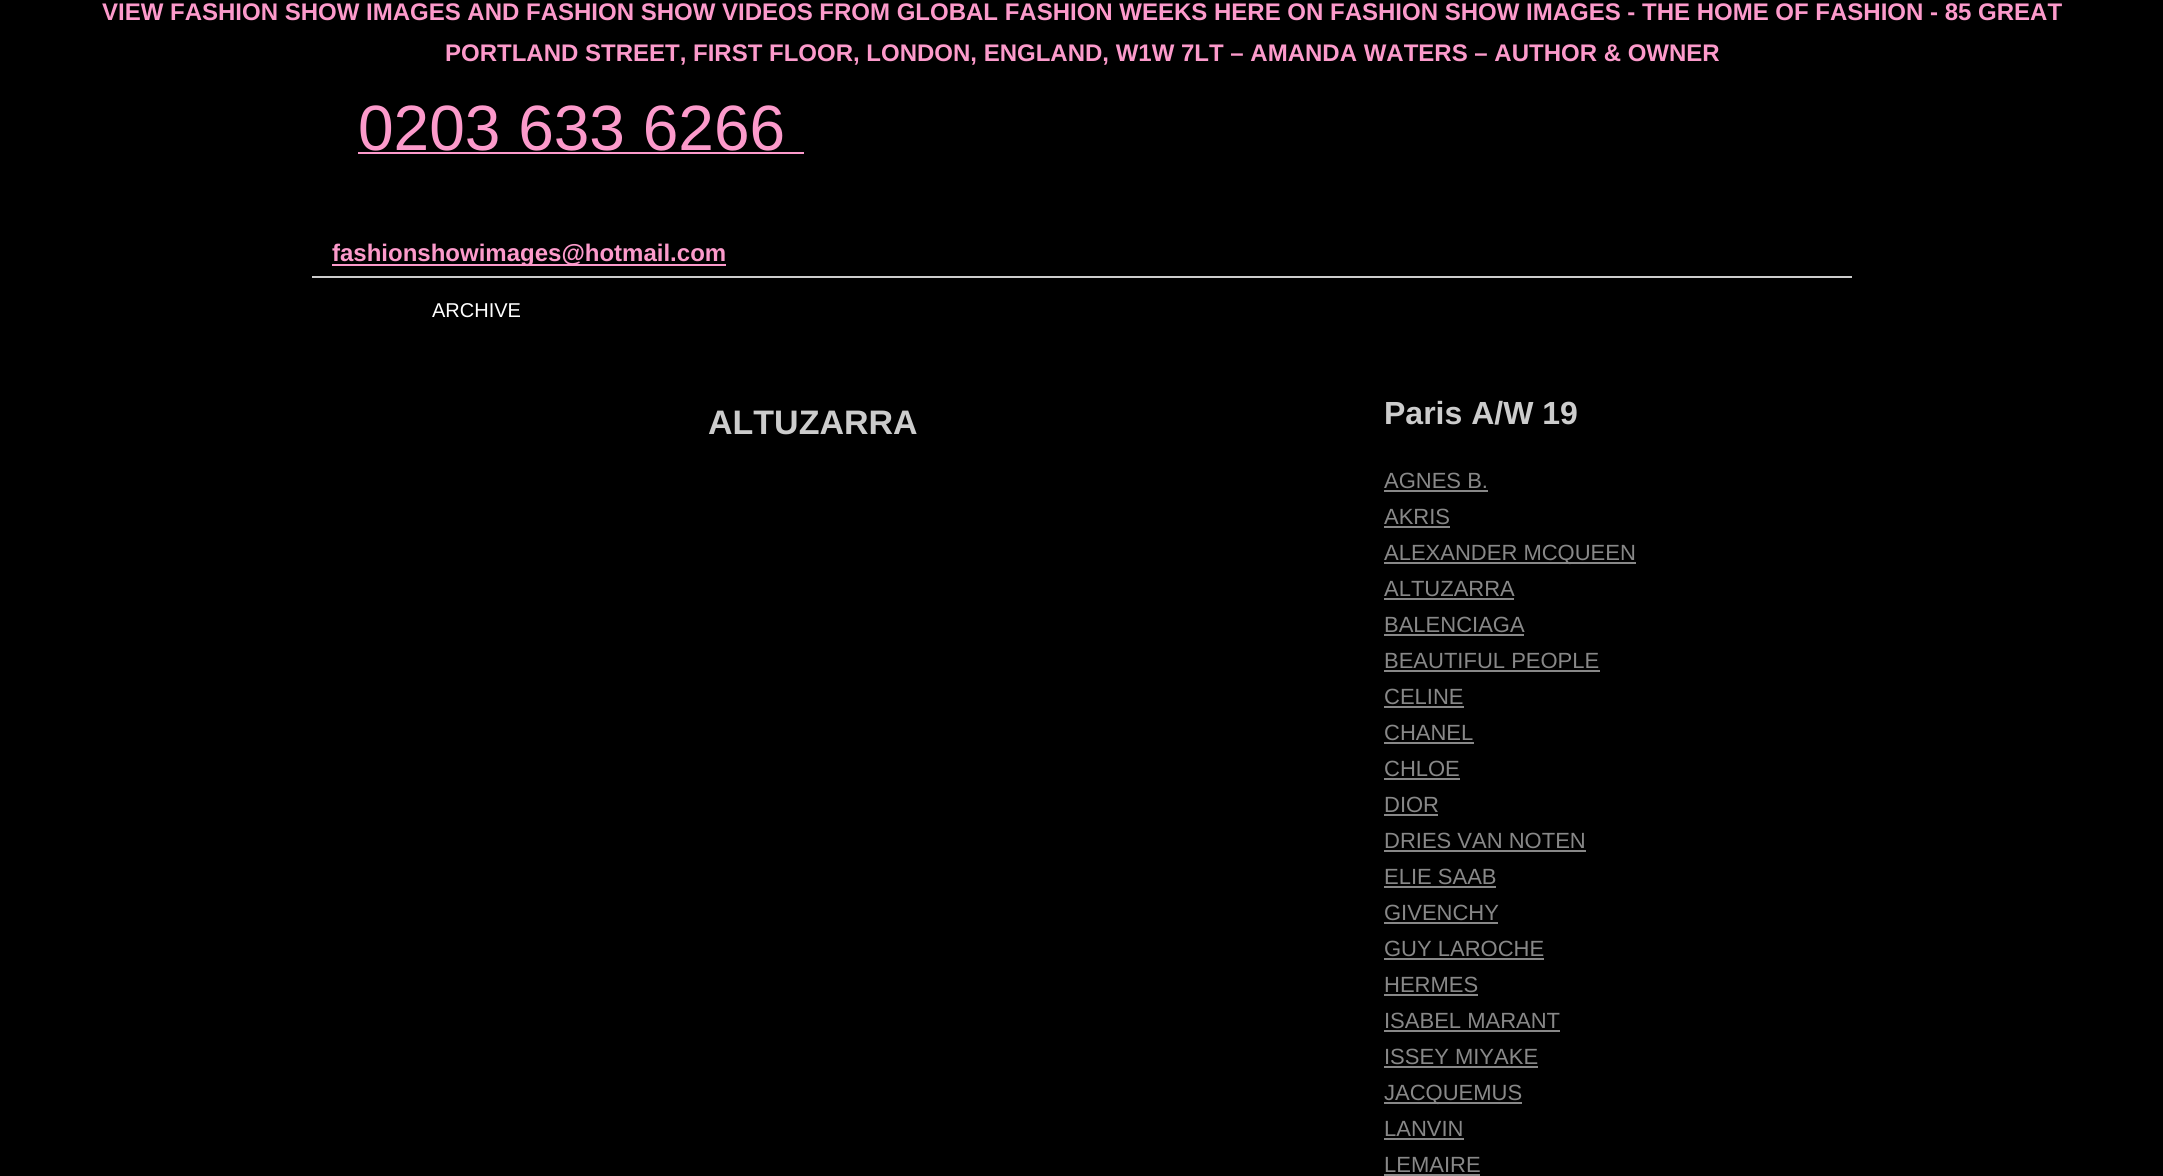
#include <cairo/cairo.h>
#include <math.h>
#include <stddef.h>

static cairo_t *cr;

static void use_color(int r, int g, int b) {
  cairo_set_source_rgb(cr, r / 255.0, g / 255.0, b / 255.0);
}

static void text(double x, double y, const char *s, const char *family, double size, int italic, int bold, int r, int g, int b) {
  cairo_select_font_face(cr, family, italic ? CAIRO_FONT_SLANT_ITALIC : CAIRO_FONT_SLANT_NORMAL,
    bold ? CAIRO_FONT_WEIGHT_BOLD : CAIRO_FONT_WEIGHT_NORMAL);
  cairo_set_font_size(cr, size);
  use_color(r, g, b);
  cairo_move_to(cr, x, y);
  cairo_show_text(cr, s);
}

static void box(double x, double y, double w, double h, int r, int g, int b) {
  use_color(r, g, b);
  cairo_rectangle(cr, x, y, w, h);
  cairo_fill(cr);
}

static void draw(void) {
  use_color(0, 0, 0);
  cairo_paint(cr);
  box(358, 152, 446, 2, 252, 154, 203);
  box(332, 264, 394, 2, 252, 154, 203);
  box(312, 276, 1540, 2, 204, 204, 204);
  box(1384, 490, 104, 2, 136, 136, 136);
  box(1384, 526, 66, 2, 136, 136, 136);
  box(1384, 562, 252, 2, 136, 136, 136);
  box(1384, 598, 130, 2, 136, 136, 136);
  box(1384, 634, 140, 2, 136, 136, 136);
  box(1384, 670, 216, 2, 136, 136, 136);
  box(1384, 706, 80, 2, 136, 136, 136);
  box(1384, 742, 90, 2, 136, 136, 136);
  box(1384, 778, 76, 2, 136, 136, 136);
  box(1384, 814, 54, 2, 136, 136, 136);
  box(1384, 850, 202, 2, 136, 136, 136);
  box(1384, 886, 112, 2, 136, 136, 136);
  box(1384, 922, 114, 2, 136, 136, 136);
  box(1384, 958, 160, 2, 136, 136, 136);
  box(1384, 994, 94, 2, 136, 136, 136);
  box(1384, 1030, 176, 2, 136, 136, 136);
  box(1384, 1066, 154, 2, 136, 136, 136);
  box(1384, 1102, 138, 2, 136, 136, 136);
  box(1384, 1138, 80, 2, 136, 136, 136);
  box(1384, 1174, 96, 2, 136, 136, 136);
  text(102, 20, "VIEW FASHION SHOW IMAGES AND FASHION SHOW VIDEOS FROM GLOBAL FASHION WEEKS HERE ON FASHION SHOW IMAGES - THE HOME OF FASHION - 85 GREAT", "Liberation Sans", 24, 0, 1, 252, 154, 203);
  text(445, 61, "PORTLAND STREET, FIRST FLOOR, LONDON, ENGLAND, W1W 7LT – AMANDA WATERS – AUTHOR & OWNER", "Liberation Sans", 24, 0, 1, 252, 154, 203);
  text(358, 150, "0203 633 6266", "Liberation Sans", 64, 0, 0, 252, 154, 203);
  text(332, 261, "fashionshowimages@hotmail.com", "Liberation Sans", 24, 0, 1, 252, 154, 203);
  text(432, 317, "ARCHIVE", "Liberation Sans", 20, 0, 0, 255, 255, 255);
  text(708, 434, "ALTUZARRA", "Liberation Sans", 34, 0, 1, 204, 204, 204);
  text(1384, 424, "Paris A/W 19", "Liberation Sans", 32, 0, 1, 204, 204, 204);
  text(1384, 488, "AGNES B.", "Liberation Sans", 22, 0, 0, 136, 136, 136);
  text(1384, 524, "AKRIS", "Liberation Sans", 22, 0, 0, 136, 136, 136);
  text(1384, 560, "ALEXANDER MCQUEEN", "Liberation Sans", 22, 0, 0, 136, 136, 136);
  text(1384, 596, "ALTUZARRA", "Liberation Sans", 22, 0, 0, 136, 136, 136);
  text(1384, 632, "BALENCIAGA", "Liberation Sans", 22, 0, 0, 136, 136, 136);
  text(1384, 668, "BEAUTIFUL PEOPLE", "Liberation Sans", 22, 0, 0, 136, 136, 136);
  text(1384, 704, "CELINE", "Liberation Sans", 22, 0, 0, 136, 136, 136);
  text(1384, 740, "CHANEL", "Liberation Sans", 22, 0, 0, 136, 136, 136);
  text(1384, 776, "CHLOE", "Liberation Sans", 22, 0, 0, 136, 136, 136);
  text(1384, 812, "DIOR", "Liberation Sans", 22, 0, 0, 136, 136, 136);
  text(1384, 848, "DRIES VAN NOTEN", "Liberation Sans", 22, 0, 0, 136, 136, 136);
  text(1384, 884, "ELIE SAAB", "Liberation Sans", 22, 0, 0, 136, 136, 136);
  text(1384, 920, "GIVENCHY", "Liberation Sans", 22, 0, 0, 136, 136, 136);
  text(1384, 956, "GUY LAROCHE", "Liberation Sans", 22, 0, 0, 136, 136, 136);
  text(1384, 992, "HERMES", "Liberation Sans", 22, 0, 0, 136, 136, 136);
  text(1384, 1028, "ISABEL MARANT", "Liberation Sans", 22, 0, 0, 136, 136, 136);
  text(1384, 1064, "ISSEY MIYAKE", "Liberation Sans", 22, 0, 0, 136, 136, 136);
  text(1384, 1100, "JACQUEMUS", "Liberation Sans", 22, 0, 0, 136, 136, 136);
  text(1384, 1136, "LANVIN", "Liberation Sans", 22, 0, 0, 136, 136, 136);
  text(1384, 1172, "LEMAIRE", "Liberation Sans", 22, 0, 0, 136, 136, 136);
}

int main(void) {
  cairo_surface_t *surface = cairo_image_surface_create(CAIRO_FORMAT_RGB24, 2163, 1176);
  cr = cairo_create(surface);
  cairo_font_options_t *options = cairo_font_options_create();
  cairo_font_options_set_hint_metrics(options, CAIRO_HINT_METRICS_OFF);
  cairo_font_options_set_hint_style(options, CAIRO_HINT_STYLE_NONE);
  cairo_set_font_options(cr, options);
  cairo_set_miter_limit(cr, 4);
  draw();
  cairo_surface_write_to_png(surface, "out.png");
  cairo_font_options_destroy(options);
  cairo_destroy(cr);
  cairo_surface_destroy(surface);
  return 0;
}
